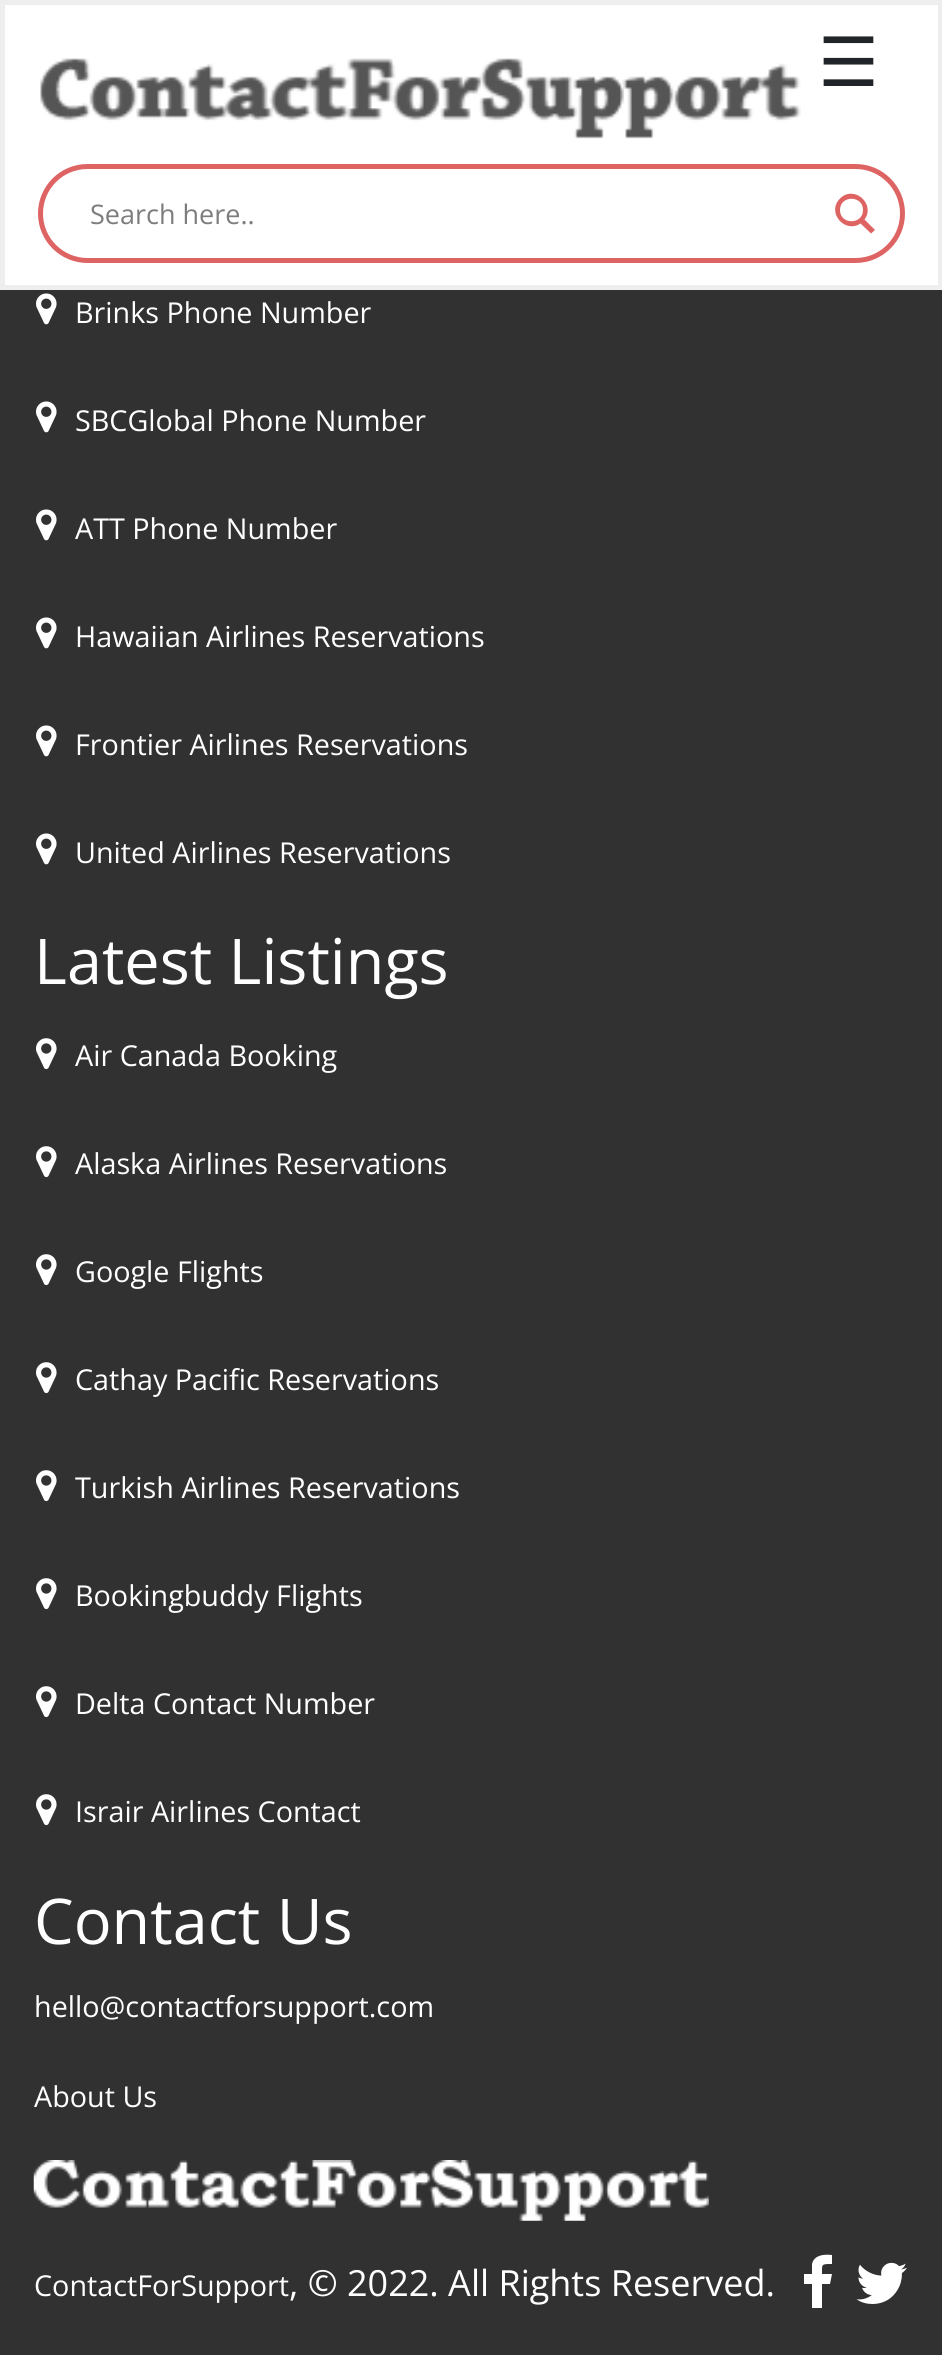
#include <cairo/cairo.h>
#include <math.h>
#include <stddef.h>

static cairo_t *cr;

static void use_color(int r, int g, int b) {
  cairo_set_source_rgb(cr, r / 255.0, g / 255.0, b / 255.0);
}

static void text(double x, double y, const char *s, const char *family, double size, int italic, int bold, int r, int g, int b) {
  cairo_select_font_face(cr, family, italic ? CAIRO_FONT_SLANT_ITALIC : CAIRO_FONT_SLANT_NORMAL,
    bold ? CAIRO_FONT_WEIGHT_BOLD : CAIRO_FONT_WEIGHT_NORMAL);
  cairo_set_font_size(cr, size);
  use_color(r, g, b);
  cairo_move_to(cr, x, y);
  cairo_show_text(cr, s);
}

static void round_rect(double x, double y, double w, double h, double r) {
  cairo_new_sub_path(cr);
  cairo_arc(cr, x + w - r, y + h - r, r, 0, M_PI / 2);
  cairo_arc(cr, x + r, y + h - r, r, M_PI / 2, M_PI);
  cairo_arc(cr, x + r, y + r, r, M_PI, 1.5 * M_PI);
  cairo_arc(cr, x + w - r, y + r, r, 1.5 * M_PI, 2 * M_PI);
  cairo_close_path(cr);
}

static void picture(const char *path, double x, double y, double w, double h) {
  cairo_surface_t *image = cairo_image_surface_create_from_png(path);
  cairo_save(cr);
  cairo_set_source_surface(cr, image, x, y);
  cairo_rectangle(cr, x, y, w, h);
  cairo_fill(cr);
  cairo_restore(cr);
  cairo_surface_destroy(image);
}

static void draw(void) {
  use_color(49, 49, 49);
  cairo_paint(cr);
  use_color(255, 255, 255);
  cairo_rectangle(cr, 2.5, 2.5, 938, 285);
  cairo_fill_preserve(cr);
  use_color(238, 238, 238);
  cairo_set_line_width(cr, 5);
  cairo_stroke(cr);
  picture("img_01.png", 40, 58, 761, 81);
  round_rect(40.5, 166.5, 862, 94, 47);
  use_color(222, 100, 100);
  cairo_stroke(cr);
  cairo_new_path(cr);
  cairo_move_to(cr, 875, 230);
  cairo_line_to(cr, 864.5, 219.5);
  cairo_curve_to(cr, 876, 204, 854, 184.5, 840, 198.5);
  cairo_curve_to(cr, 826, 212.5, 845, 234, 860.5, 223.5);
  cairo_line_to(cr, 871, 233.5);
  cairo_close_path(cr);
  cairo_move_to(cr, 840, 210);
  cairo_curve_to(cr, 840, 195, 863, 195, 863, 210);
  cairo_curve_to(cr, 863, 225, 840, 225, 840, 210);
  cairo_close_path(cr);
  cairo_fill(cr);
  picture("img_02.png", 36, 293, 21, 32);
  picture("img_02.png", 36, 401, 21, 32);
  picture("img_02.png", 36, 509, 21, 32);
  picture("img_02.png", 36, 617, 21, 32);
  picture("img_02.png", 36, 725, 21, 32);
  picture("img_02.png", 36, 833, 21, 32);
  picture("img_03.png", 36, 1038, 21, 32);
  picture("img_03.png", 36, 1146, 21, 32);
  picture("img_03.png", 36, 1254, 21, 32);
  picture("img_03.png", 36, 1362, 21, 32);
  picture("img_03.png", 36, 1470, 21, 32);
  picture("img_03.png", 36, 1578, 21, 32);
  picture("img_03.png", 36, 1686, 21, 32);
  picture("img_03.png", 36, 1794, 21, 32);
  picture("img_04.png", 33, 2160, 676, 61);
  use_color(255, 255, 255);
  cairo_new_path(cr);
  cairo_move_to(cr, 832, 2255);
  cairo_line_to(cr, 832, 2264);
  cairo_curve_to(cr, 821, 2264, 822, 2264, 822, 2274);
  cairo_line_to(cr, 832, 2274);
  cairo_line_to(cr, 830, 2284);
  cairo_line_to(cr, 822, 2284);
  cairo_line_to(cr, 822, 2308);
  cairo_line_to(cr, 812, 2308);
  cairo_line_to(cr, 812, 2284);
  cairo_line_to(cr, 804, 2284);
  cairo_line_to(cr, 804, 2274);
  cairo_line_to(cr, 812, 2274);
  cairo_line_to(cr, 812, 2264);
  cairo_curve_to(cr, 814, 2255, 824, 2254, 832, 2255);
  cairo_close_path(cr);
  cairo_fill(cr);
  picture("img_05.png", 856, 2262, 51, 42);
  text(818, 86, "☰", "DejaVu Sans", 68, 0, 0, 33, 37, 41);
  text(90, 224, "Search here..", "Open Sans", 27, 0, 0, 125, 125, 125);
  text(75, 323, "Brinks Phone Number", "Open Sans", 28.75, 0, 0, 255, 255, 255);
  text(75, 431, "SBCGlobal Phone Number", "Open Sans", 28.75, 0, 0, 255, 255, 255);
  text(75, 539, "ATT Phone Number", "Open Sans", 28.75, 0, 0, 255, 255, 255);
  text(75, 647, "Hawaiian Airlines Reservations", "Open Sans", 28.75, 0, 0, 255, 255, 255);
  text(75, 755, "Frontier Airlines Reservations", "Open Sans", 28.75, 0, 0, 255, 255, 255);
  text(75, 863, "United Airlines Reservations", "Open Sans", 28.75, 0, 0, 255, 255, 255);
  text(34, 984, "Latest Listings", "Open Sans", 63, 0, 0, 255, 255, 255);
  text(75, 1066, "Air Canada Booking", "Open Sans", 28.75, 0, 0, 255, 255, 255);
  text(75, 1174, "Alaska Airlines Reservations", "Open Sans", 28.75, 0, 0, 255, 255, 255);
  text(75, 1282, "Google Flights", "Open Sans", 28.75, 0, 0, 255, 255, 255);
  text(75, 1390, "Cathay Pacific Reservations", "Open Sans", 28.75, 0, 0, 255, 255, 255);
  text(75, 1498, "Turkish Airlines Reservations", "Open Sans", 28.75, 0, 0, 255, 255, 255);
  text(75, 1606, "Bookingbuddy Flights", "Open Sans", 28.75, 0, 0, 255, 255, 255);
  text(75, 1714, "Delta Contact Number", "Open Sans", 28.75, 0, 0, 255, 255, 255);
  text(75, 1822, "Israir Airlines Contact", "Open Sans", 28.75, 0, 0, 255, 255, 255);
  text(34, 1944, "Contact Us", "Open Sans", 63, 0, 0, 255, 255, 255);
  text(34, 2017, "hello@contactforsupport.com", "Open Sans", 28.75, 0, 0, 255, 255, 255);
  text(34, 2107, "About Us", "Open Sans", 28.75, 0, 0, 255, 255, 255);
  text(34, 2296, "ContactForSupport", "Open Sans", 28.75, 0, 0, 255, 255, 255);
  text(289, 2296, ", © 2022. All Rights Reserved.", "Open Sans", 36, 0, 0, 255, 255, 255);
}

int main(void) {
  cairo_surface_t *surface = cairo_image_surface_create(CAIRO_FORMAT_RGB24, 942, 2355);
  cr = cairo_create(surface);
  cairo_font_options_t *options = cairo_font_options_create();
  cairo_font_options_set_hint_metrics(options, CAIRO_HINT_METRICS_OFF);
  cairo_font_options_set_hint_style(options, CAIRO_HINT_STYLE_NONE);
  cairo_set_font_options(cr, options);
  cairo_set_miter_limit(cr, 4);
  draw();
  cairo_surface_write_to_png(surface, "out.png");
  cairo_font_options_destroy(options);
  cairo_destroy(cr);
  cairo_surface_destroy(surface);
  return 0;
}
